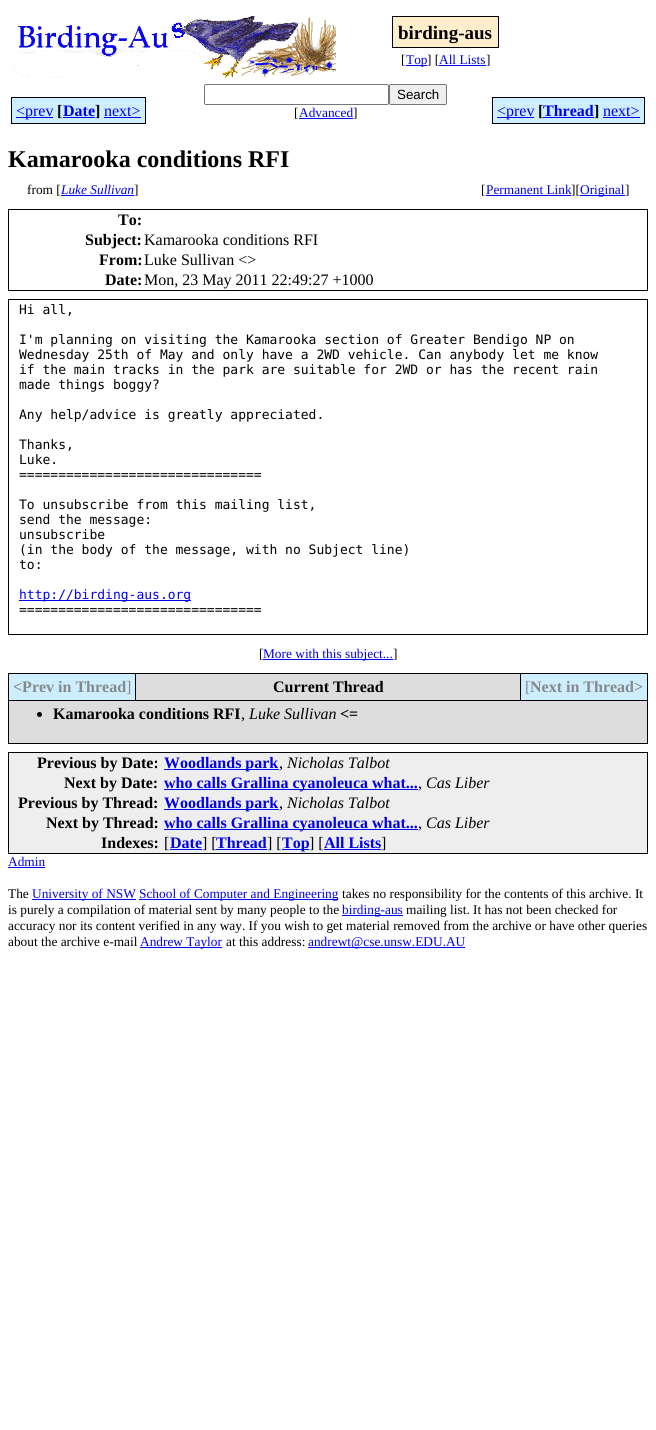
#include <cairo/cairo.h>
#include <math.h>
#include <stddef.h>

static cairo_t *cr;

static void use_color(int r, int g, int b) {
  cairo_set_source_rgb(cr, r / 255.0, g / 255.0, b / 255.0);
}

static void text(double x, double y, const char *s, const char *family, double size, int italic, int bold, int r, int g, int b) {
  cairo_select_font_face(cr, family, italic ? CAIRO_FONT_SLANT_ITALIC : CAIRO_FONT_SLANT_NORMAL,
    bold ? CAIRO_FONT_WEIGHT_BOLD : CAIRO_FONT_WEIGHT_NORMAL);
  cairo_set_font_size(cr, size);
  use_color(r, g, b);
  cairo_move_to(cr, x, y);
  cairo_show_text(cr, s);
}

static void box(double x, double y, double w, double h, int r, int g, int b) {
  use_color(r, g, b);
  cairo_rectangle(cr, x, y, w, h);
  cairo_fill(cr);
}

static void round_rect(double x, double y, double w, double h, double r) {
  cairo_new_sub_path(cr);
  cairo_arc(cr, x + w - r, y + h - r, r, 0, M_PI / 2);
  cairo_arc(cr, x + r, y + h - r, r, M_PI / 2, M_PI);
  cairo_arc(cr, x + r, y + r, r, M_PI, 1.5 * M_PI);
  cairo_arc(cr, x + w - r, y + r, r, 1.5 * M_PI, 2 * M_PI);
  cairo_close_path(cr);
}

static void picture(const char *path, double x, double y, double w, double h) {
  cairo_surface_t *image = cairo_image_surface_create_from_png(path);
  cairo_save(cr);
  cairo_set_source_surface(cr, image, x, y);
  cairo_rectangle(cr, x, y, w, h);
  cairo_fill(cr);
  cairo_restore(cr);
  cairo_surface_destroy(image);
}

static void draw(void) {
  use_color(255, 255, 255);
  cairo_paint(cr);
  picture("img_01.png", 13, 16, 323, 62);
  use_color(255, 238, 204);
  cairo_rectangle(cr, 392.5, 16.5, 106, 31);
  cairo_fill_preserve(cr);
  use_color(0, 0, 0);
  cairo_set_line_width(cr, 1);
  cairo_stroke(cr);
  box(406, 65, 21, 1, 0, 0, 238);
  box(439, 65, 47, 1, 0, 0, 238);
  box(12, 98, 41, 25, 204, 238, 255);
  box(11, 97, 42, 1, 0, 0, 0);
  box(11, 123, 42, 1, 0, 0, 0);
  box(11, 97, 1, 27, 0, 0, 0);
  box(53, 97, 10, 27, 204, 238, 255);
  box(53, 123, 42, 1, 0, 0, 0);
  box(16, 117, 37, 1, 0, 0, 238);
  box(63, 98, 32, 25, 204, 238, 255);
  box(63, 117, 32, 1, 0, 0, 238);
  box(53, 97, 42, 1, 0, 0, 0);
  box(95, 97, 9, 27, 204, 238, 255);
  box(95, 97, 51, 1, 0, 0, 0);
  box(95, 123, 9, 1, 0, 0, 0);
  box(104, 98, 41, 25, 204, 238, 255);
  box(145, 97, 1, 27, 0, 0, 0);
  box(104, 123, 42, 1, 0, 0, 0);
  box(104, 117, 37, 1, 0, 0, 238);
  round_rect(204.5, 84.5, 184, 20, 1.5);
  use_color(118, 118, 118);
  cairo_stroke(cr);
  use_color(239, 239, 239);
  round_rect(389.5, 84.5, 57, 20, 1.5);
  cairo_fill_preserve(cr);
  use_color(118, 118, 118);
  cairo_stroke(cr);
  box(299, 118, 54, 1, 0, 0, 238);
  box(493, 98, 41, 25, 204, 238, 255);
  box(492, 97, 42, 1, 0, 0, 0);
  box(492, 123, 42, 1, 0, 0, 0);
  box(492, 97, 1, 27, 0, 0, 0);
  box(534, 97, 9, 27, 204, 238, 255);
  box(534, 123, 60, 1, 0, 0, 0);
  box(497, 117, 37, 1, 0, 0, 238);
  box(543, 98, 51, 25, 204, 238, 255);
  box(543, 117, 51, 1, 0, 0, 238);
  box(534, 97, 60, 1, 0, 0, 0);
  box(594, 97, 9, 27, 204, 238, 255);
  box(594, 97, 51, 1, 0, 0, 0);
  box(594, 123, 9, 1, 0, 0, 0);
  box(603, 98, 41, 25, 204, 238, 255);
  box(644, 97, 1, 27, 0, 0, 0);
  box(603, 123, 42, 1, 0, 0, 0);
  box(603, 117, 37, 1, 0, 0, 238);
  box(61, 195, 73, 1, 0, 0, 238);
  box(486, 195, 85, 1, 0, 0, 238);
  box(580, 195, 45, 1, 0, 0, 238);
  cairo_rectangle(cr, 8.5, 209.5, 639, 81);
  use_color(0, 0, 0);
  cairo_stroke(cr);
  cairo_rectangle(cr, 8.5, 299.5, 639, 335);
  cairo_stroke(cr);
  box(19, 600, 172, 1, 0, 0, 238);
  box(263, 659, 130, 1, 0, 0, 238);
  box(8, 673, 640, 71, 0, 0, 0);
  box(9, 674, 126, 26, 204, 238, 255);
  box(136, 674, 384, 26, 221, 221, 221);
  box(521, 674, 126, 26, 204, 238, 255);
  box(9, 701, 638, 42, 221, 221, 221);
  use_color(0, 0, 0);
  cairo_arc(cr, 39.5, 714.5, 2.5, 0, 2 * M_PI);
  cairo_fill(cr);
  use_color(238, 238, 238);
  cairo_rectangle(cr, 8.5, 752.5, 639, 101);
  cairo_fill_preserve(cr);
  use_color(0, 0, 0);
  cairo_stroke(cr);
  box(164, 769, 115, 1, 0, 0, 238);
  box(164, 789, 254, 1, 0, 0, 238);
  box(164, 809, 115, 1, 0, 0, 238);
  box(164, 829, 254, 1, 0, 0, 238);
  box(170, 849, 32, 1, 0, 0, 238);
  box(216, 849, 51, 1, 0, 0, 238);
  box(282, 849, 27, 1, 0, 0, 238);
  box(324, 849, 57, 1, 0, 0, 238);
  box(8, 867, 37, 1, 0, 0, 238);
  box(32, 899, 104, 1, 0, 0, 238);
  box(139, 899, 199, 1, 0, 0, 238);
  box(342, 915, 61, 1, 0, 0, 238);
  box(140, 947, 82, 1, 0, 0, 238);
  box(308, 947, 157, 1, 0, 0, 238);
  text(398, 39, "birding-aus", "Liberation Serif", 19, 0, 1, 0, 0, 0);
  text(401, 64, "[", "Liberation Serif", 13.35, 0, 0, 0, 0, 0);
  text(406, 64, "Top", "Liberation Serif", 13.35, 0, 0, 0, 0, 238);
  text(427, 64, "] [", "Liberation Serif", 13.35, 0, 0, 0, 0, 0);
  text(439, 64, "All Lists", "Liberation Serif", 13.35, 0, 0, 0, 0, 238);
  text(486, 64, "]", "Liberation Serif", 13.35, 0, 0, 0, 0, 0);
  text(16, 116, "<prev", "Liberation Serif", 16, 0, 0, 0, 0, 238);
  text(57, 116, "[", "Liberation Serif", 16, 0, 1, 0, 0, 0);
  text(63, 116, "Date", "Liberation Serif", 16, 0, 1, 0, 0, 238);
  text(95, 116, "]", "Liberation Serif", 16, 0, 1, 0, 0, 0);
  text(104, 116, "next>", "Liberation Serif", 16, 0, 0, 0, 0, 238);
  text(397, 99, "Search", "Liberation Sans", 13.35, 0, 0, 0, 0, 0);
  text(294, 117, "[", "Liberation Serif", 13.35, 0, 0, 0, 0, 0);
  text(299, 117, "Advanced", "Liberation Serif", 13.35, 0, 0, 0, 0, 238);
  text(353, 117, "]", "Liberation Serif", 13.35, 0, 0, 0, 0, 0);
  text(497, 116, "<prev", "Liberation Serif", 16, 0, 0, 0, 0, 238);
  text(538, 116, "[", "Liberation Serif", 16, 0, 1, 0, 0, 0);
  text(543, 116, "Thread", "Liberation Serif", 16, 0, 1, 0, 0, 238);
  text(594, 116, "]", "Liberation Serif", 16, 0, 1, 0, 0, 0);
  text(603, 116, "next>", "Liberation Serif", 16, 0, 0, 0, 0, 238);
  text(8, 167, "Kamarooka conditions RFI", "Liberation Serif", 24, 0, 1, 0, 0, 0);
  text(27, 194, "from [", "Liberation Serif", 13.35, 0, 0, 0, 0, 0);
  text(61, 194, "Luke Sullivan", "Liberation Serif", 13.35, 1, 0, 0, 0, 238);
  text(134, 194, "]", "Liberation Serif", 13.35, 0, 0, 0, 0, 0);
  text(481, 194, "[", "Liberation Serif", 13.35, 0, 0, 0, 0, 0);
  text(486, 194, "Permanent Link", "Liberation Serif", 13.35, 0, 0, 0, 0, 238);
  text(571, 194, "][", "Liberation Serif", 13.35, 0, 0, 0, 0, 0);
  text(580, 194, "Original", "Liberation Serif", 13.35, 0, 0, 0, 0, 238);
  text(625, 194, "]", "Liberation Serif", 13.35, 0, 0, 0, 0, 0);
  text(118, 225, "To:", "Liberation Serif", 16, 0, 1, 0, 0, 0);
  text(85, 245, "Subject:", "Liberation Serif", 16, 0, 1, 0, 0, 0);
  text(144, 245, "Kamarooka conditions RFI", "Liberation Serif", 16, 0, 0, 0, 0, 0);
  text(99, 265, "From:", "Liberation Serif", 16, 0, 1, 0, 0, 0);
  text(144, 265, "Luke Sullivan <>", "Liberation Serif", 16, 0, 0, 0, 0, 0);
  text(105, 285, "Date:", "Liberation Serif", 16, 0, 1, 0, 0, 0);
  text(144, 285, "Mon, 23 May 2011 22:49:27 +1000", "Liberation Serif", 16, 0, 0, 0, 0, 0);
  text(19, 314, "Hi all,", "DejaVu Sans Mono", 13, 0, 0, 0, 0, 0);
  text(19, 344, "I'm planning on visiting the Kamarooka section of Greater Bendigo NP on", "DejaVu Sans Mono", 13, 0, 0, 0, 0, 0);
  text(19, 359, "Wednesday 25th of May and only have a 2WD vehicle. Can anybody let me know", "DejaVu Sans Mono", 13, 0, 0, 0, 0, 0);
  text(19, 374, "if the main tracks in the park are suitable for 2WD or has the recent rain", "DejaVu Sans Mono", 13, 0, 0, 0, 0, 0);
  text(19, 389, "made things boggy?", "DejaVu Sans Mono", 13, 0, 0, 0, 0, 0);
  text(19, 419, "Any help/advice is greatly appreciated.", "DejaVu Sans Mono", 13, 0, 0, 0, 0, 0);
  text(19, 449, "Thanks,", "DejaVu Sans Mono", 13, 0, 0, 0, 0, 0);
  text(19, 464, "Luke.", "DejaVu Sans Mono", 13, 0, 0, 0, 0, 0);
  text(19, 479, "===============================", "DejaVu Sans Mono", 13, 0, 0, 0, 0, 0);
  text(19, 509, "To unsubscribe from this mailing list,", "DejaVu Sans Mono", 13, 0, 0, 0, 0, 0);
  text(19, 524, "send the message:", "DejaVu Sans Mono", 13, 0, 0, 0, 0, 0);
  text(19, 539, "unsubscribe", "DejaVu Sans Mono", 13, 0, 0, 0, 0, 0);
  text(19, 554, "(in the body of the message, with no Subject line)", "DejaVu Sans Mono", 13, 0, 0, 0, 0, 0);
  text(19, 569, "to:", "DejaVu Sans Mono", 13, 0, 0, 0, 0, 0);
  text(19, 599, "http://birding-aus.org", "DejaVu Sans Mono", 13, 0, 0, 0, 0, 238);
  text(19, 614, "===============================", "DejaVu Sans Mono", 13, 0, 0, 0, 0, 0);
  text(259, 658, "[", "Liberation Serif", 13.35, 0, 0, 0, 0, 0);
  text(263, 658, "More with this subject...", "Liberation Serif", 13.35, 0, 0, 0, 0, 238);
  text(393, 658, "]", "Liberation Serif", 13.35, 0, 0, 0, 0, 0);
  text(13, 692, "<Prev in Thread", "Liberation Serif", 16, 0, 1, 136, 136, 136);
  text(126, 692, "]", "Liberation Serif", 16, 0, 0, 136, 136, 136);
  text(273, 692, "Current Thread", "Liberation Serif", 16, 0, 1, 0, 0, 0);
  text(525, 692, "[", "Liberation Serif", 16, 0, 0, 136, 136, 136);
  text(530, 692, "Next in Thread>", "Liberation Serif", 16, 0, 1, 136, 136, 136);
  text(53, 719, "Kamarooka conditions RFI", "Liberation Serif", 16, 0, 1, 0, 0, 0);
  text(249, 719, "Luke Sullivan", "Liberation Serif", 16, 1, 0, 0, 0, 0);
  text(340, 719, "<=", "Liberation Serif", 16, 0, 1, 0, 0, 0);
  text(241, 719, ",", "Liberation Serif", 16, 0, 0, 0, 0, 0);
  text(37, 768, "Previous by Date:", "Liberation Serif", 16, 0, 1, 0, 0, 0);
  text(164, 768, "Woodlands park", "Liberation Serif", 16, 0, 1, 0, 0, 238);
  text(279, 768, ",", "Liberation Serif", 16, 0, 0, 0, 0, 0);
  text(287, 768, "Nicholas Talbot", "Liberation Serif", 16, 1, 0, 0, 0, 0);
  text(64, 788, "Next by Date:", "Liberation Serif", 16, 0, 1, 0, 0, 0);
  text(164, 788, "who calls Grallina cyanoleuca what...", "Liberation Serif", 16, 0, 1, 0, 0, 238);
  text(418, 788, ",", "Liberation Serif", 16, 0, 0, 0, 0, 0);
  text(426, 788, "Cas Liber", "Liberation Serif", 16, 1, 0, 0, 0, 0);
  text(18, 808, "Previous by Thread:", "Liberation Serif", 16, 0, 1, 0, 0, 0);
  text(164, 808, "Woodlands park", "Liberation Serif", 16, 0, 1, 0, 0, 238);
  text(279, 808, ",", "Liberation Serif", 16, 0, 0, 0, 0, 0);
  text(287, 808, "Nicholas Talbot", "Liberation Serif", 16, 1, 0, 0, 0, 0);
  text(46, 828, "Next by Thread:", "Liberation Serif", 16, 0, 1, 0, 0, 0);
  text(164, 828, "who calls Grallina cyanoleuca what...", "Liberation Serif", 16, 0, 1, 0, 0, 238);
  text(418, 828, ",", "Liberation Serif", 16, 0, 0, 0, 0, 0);
  text(426, 828, "Cas Liber", "Liberation Serif", 16, 1, 0, 0, 0, 0);
  text(101, 848, "Indexes:", "Liberation Serif", 16, 0, 1, 0, 0, 0);
  text(164, 848, "[", "Liberation Serif", 16, 0, 0, 0, 0, 0);
  text(170, 848, "Date", "Liberation Serif", 16, 0, 1, 0, 0, 238);
  text(202, 848, "] [", "Liberation Serif", 16, 0, 0, 0, 0, 0);
  text(216, 848, "Thread", "Liberation Serif", 16, 0, 1, 0, 0, 238);
  text(267, 848, "] [", "Liberation Serif", 16, 0, 0, 0, 0, 0);
  text(282, 848, "Top", "Liberation Serif", 16, 0, 1, 0, 0, 238);
  text(309, 848, "] [", "Liberation Serif", 16, 0, 0, 0, 0, 0);
  text(324, 848, "All Lists", "Liberation Serif", 16, 0, 1, 0, 0, 238);
  text(381, 848, "]", "Liberation Serif", 16, 0, 0, 0, 0, 0);
  text(8, 866, "Admin", "Liberation Serif", 13.35, 0, 0, 0, 0, 238);
  text(8, 898, "The", "Liberation Serif", 13.35, 0, 0, 0, 0, 0);
  text(32, 898, "University of NSW", "Liberation Serif", 13.35, 0, 0, 0, 0, 238);
  text(139, 898, "School of Computer and Engineering", "Liberation Serif", 13.35, 0, 0, 0, 0, 238);
  text(342, 898, "takes no responsibility for the contents of this archive. It", "Liberation Serif", 13.35, 0, 0, 0, 0, 0);
  text(8, 914, "is purely a compilation of material sent by many people to the", "Liberation Serif", 13.35, 0, 0, 0, 0, 0);
  text(342, 914, "birding-aus", "Liberation Serif", 13.35, 0, 0, 0, 0, 238);
  text(406, 914, "mailing list. It has not been checked for", "Liberation Serif", 13.35, 0, 0, 0, 0, 0);
  text(8, 930, "accuracy nor its content verified in any way. If you wish to get material removed from the archive or have other queries", "Liberation Serif", 13.35, 0, 0, 0, 0, 0);
  text(8, 946, "about the archive e-mail", "Liberation Serif", 13.35, 0, 0, 0, 0, 0);
  text(140, 946, "Andrew Taylor", "Liberation Serif", 13.35, 0, 0, 0, 0, 238);
  text(226, 946, "at this address:", "Liberation Serif", 13.35, 0, 0, 0, 0, 0);
  text(308, 946, "andrewt@cse.unsw.EDU.AU", "Liberation Serif", 13.35, 0, 0, 0, 0, 238);
}

int main(void) {
  cairo_surface_t *surface = cairo_image_surface_create(CAIRO_FORMAT_RGB24, 656, 1430);
  cr = cairo_create(surface);
  cairo_font_options_t *options = cairo_font_options_create();
  cairo_font_options_set_hint_metrics(options, CAIRO_HINT_METRICS_OFF);
  cairo_font_options_set_hint_style(options, CAIRO_HINT_STYLE_NONE);
  cairo_set_font_options(cr, options);
  cairo_set_miter_limit(cr, 4);
  draw();
  cairo_surface_write_to_png(surface, "out.png");
  cairo_font_options_destroy(options);
  cairo_destroy(cr);
  cairo_surface_destroy(surface);
  return 0;
}
